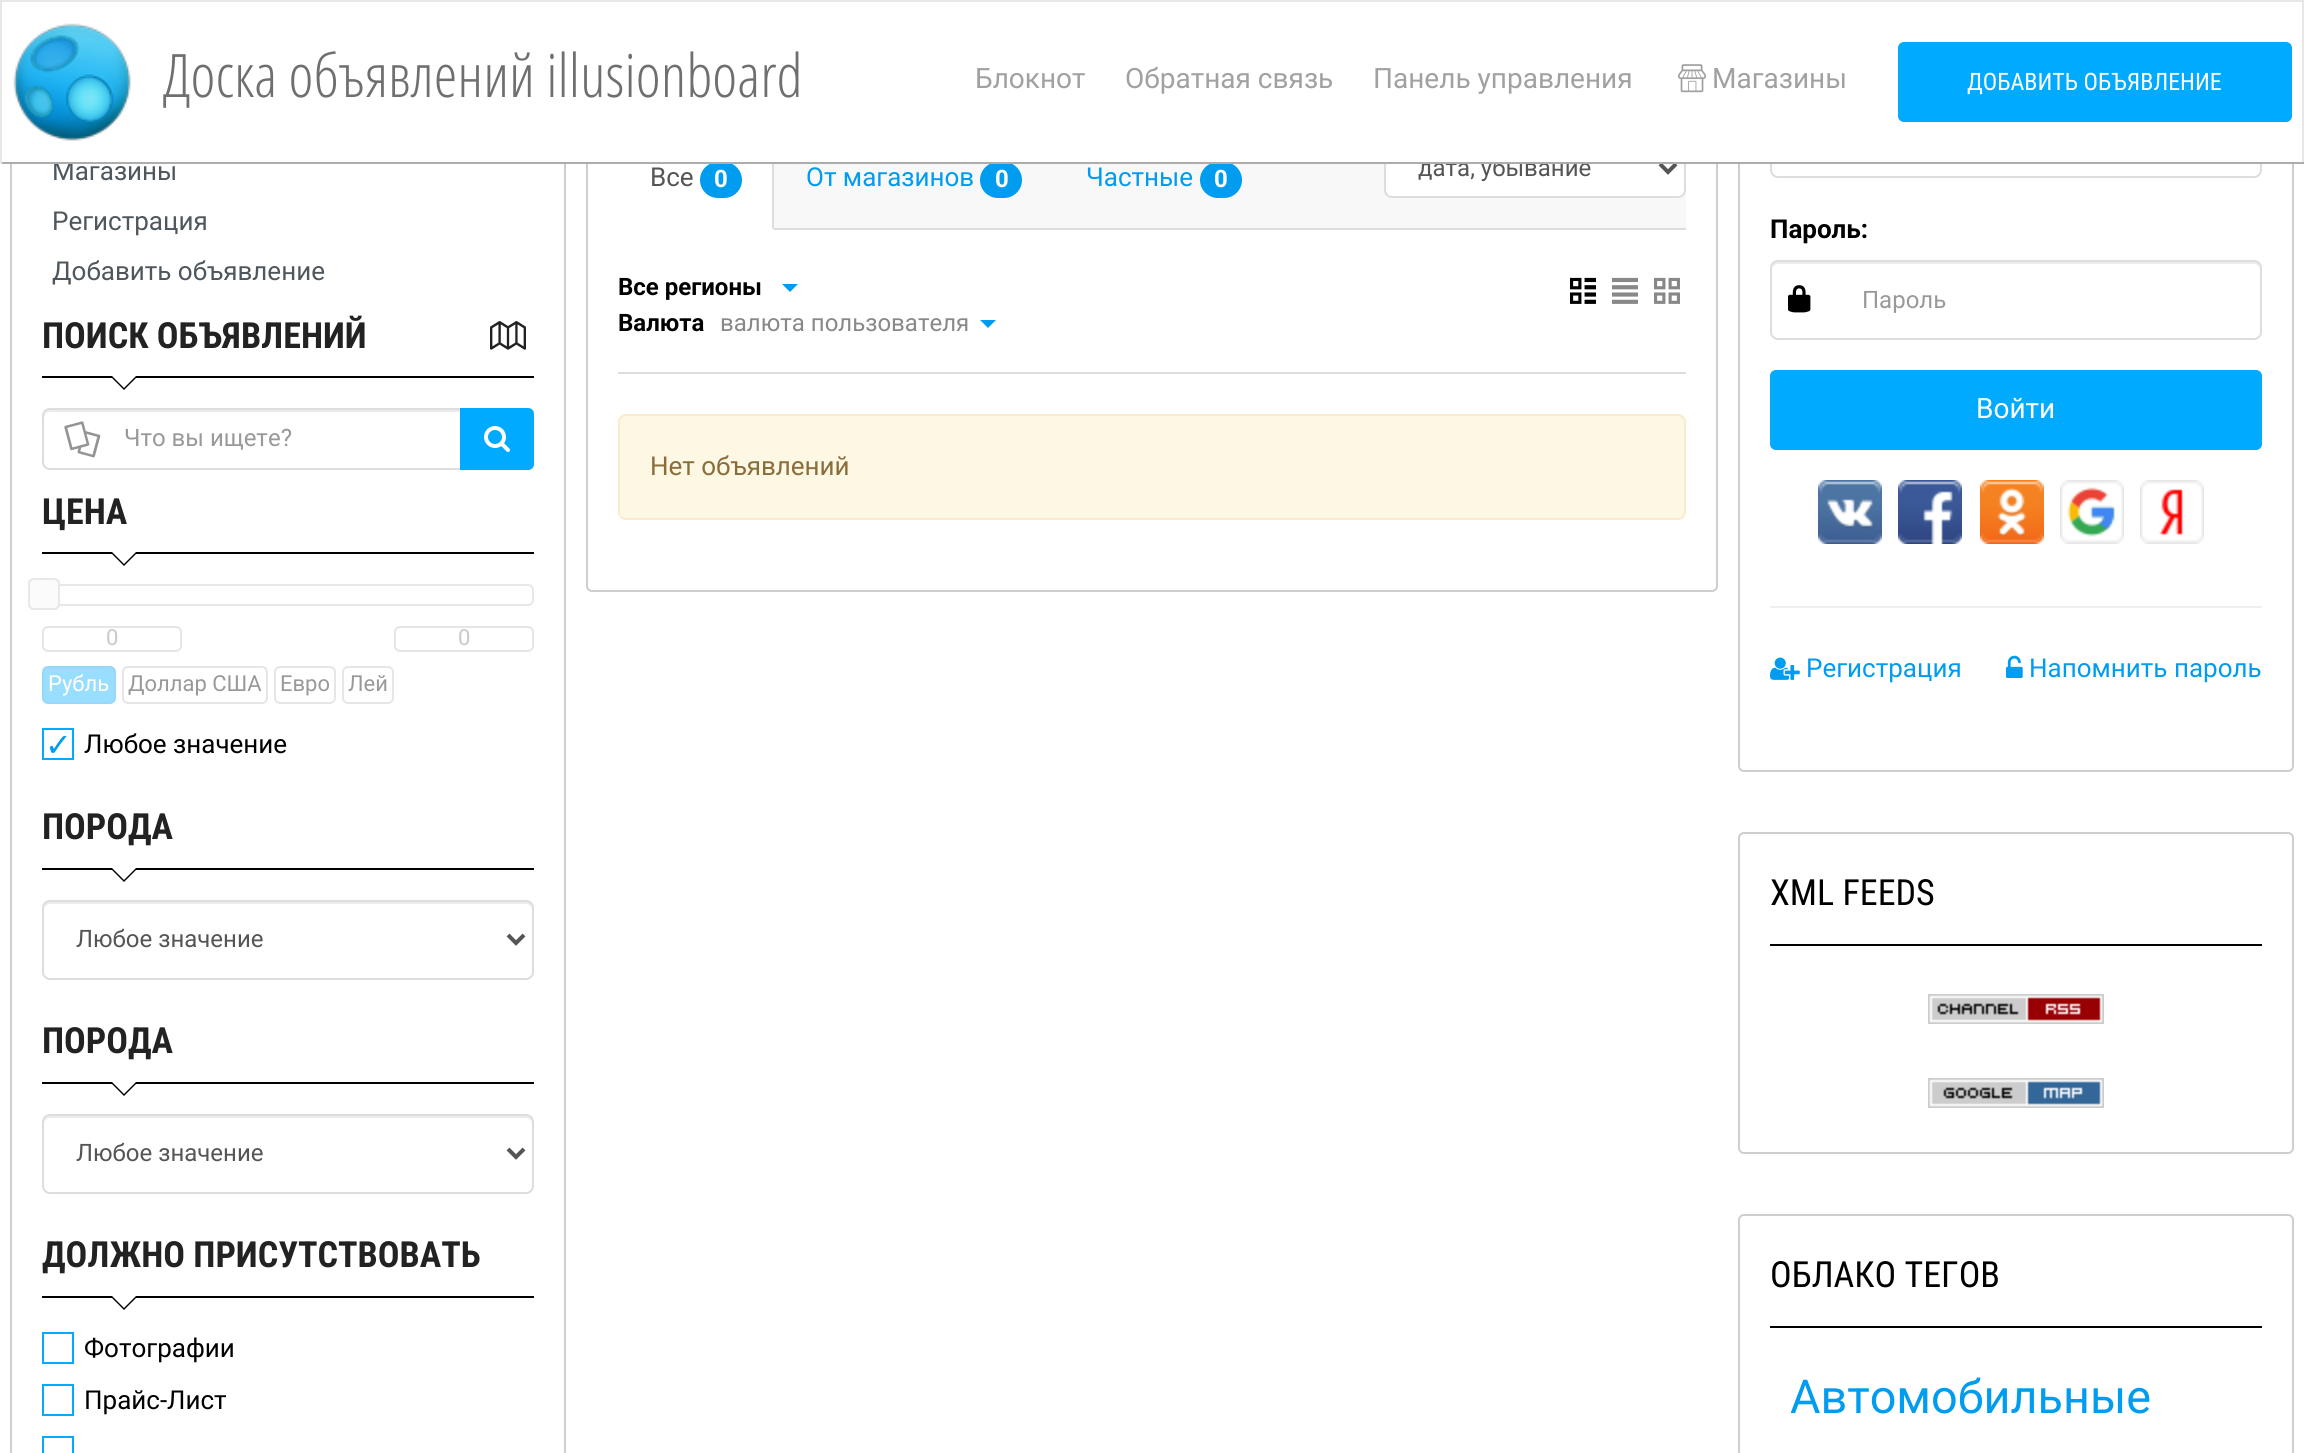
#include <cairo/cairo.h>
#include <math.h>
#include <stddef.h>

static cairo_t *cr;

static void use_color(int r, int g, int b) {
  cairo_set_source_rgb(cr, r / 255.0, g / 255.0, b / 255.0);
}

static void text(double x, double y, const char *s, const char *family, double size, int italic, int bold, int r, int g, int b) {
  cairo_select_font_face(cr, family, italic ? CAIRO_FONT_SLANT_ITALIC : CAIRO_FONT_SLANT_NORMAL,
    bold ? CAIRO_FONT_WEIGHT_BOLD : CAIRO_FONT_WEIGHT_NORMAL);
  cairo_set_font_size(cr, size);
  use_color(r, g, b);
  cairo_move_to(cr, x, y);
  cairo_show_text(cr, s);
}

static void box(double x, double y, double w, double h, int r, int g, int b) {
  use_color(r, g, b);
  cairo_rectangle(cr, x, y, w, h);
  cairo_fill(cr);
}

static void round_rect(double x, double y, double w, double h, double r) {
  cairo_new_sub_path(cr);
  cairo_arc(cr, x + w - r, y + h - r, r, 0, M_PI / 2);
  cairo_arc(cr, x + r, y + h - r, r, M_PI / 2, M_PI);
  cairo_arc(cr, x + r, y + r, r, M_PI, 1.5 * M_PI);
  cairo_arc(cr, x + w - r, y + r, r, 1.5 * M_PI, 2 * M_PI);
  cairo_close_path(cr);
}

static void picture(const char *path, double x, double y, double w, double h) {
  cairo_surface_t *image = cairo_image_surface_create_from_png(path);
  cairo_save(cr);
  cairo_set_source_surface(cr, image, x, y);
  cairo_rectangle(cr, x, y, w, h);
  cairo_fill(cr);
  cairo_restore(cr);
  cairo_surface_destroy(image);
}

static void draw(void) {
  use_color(255, 255, 255);
  cairo_paint(cr);
  cairo_rectangle(cr, 11, -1, 554, 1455);
  use_color(206, 206, 206);
  cairo_stroke(cr);
  round_rect(587, -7, 1130, 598, 5);
  cairo_stroke(cr);
  round_rect(1739, -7, 554, 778, 5);
  cairo_stroke(cr);
  box(0, 0, 2304, 2, 231, 231, 231);
  box(2302, 0, 2, 164, 231, 231, 231);
  box(42, 376, 492, 2, 0, 0, 0);
  picture("img_03.png", 490, 321, 36, 29);
  cairo_new_path(cr);
  cairo_move_to(cr, 110, 376);
  cairo_line_to(cr, 138, 376);
  cairo_line_to(cr, 124, 390);
  cairo_close_path(cr);
  cairo_fill(cr);
  use_color(255, 255, 255);
  cairo_new_path(cr);
  cairo_move_to(cr, 112, 376);
  cairo_line_to(cr, 136, 376);
  cairo_line_to(cr, 124, 388);
  cairo_close_path(cr);
  cairo_fill(cr);
  use_color(236, 236, 236);
  cairo_new_path(cr);
  cairo_move_to(cr, 50, 412);
  cairo_line_to(cr, 460, 412);
  cairo_line_to(cr, 460, 410);
  cairo_line_to(cr, 50, 410);
  cairo_curve_to(cr, 47, 410, 44, 413, 44, 416);
  cairo_line_to(cr, 44, 418);
  cairo_curve_to(cr, 44, 415, 47, 412, 50, 412);
  cairo_close_path(cr);
  cairo_fill(cr);
  cairo_new_path(cr);
  cairo_move_to(cr, 50, 409);
  cairo_line_to(cr, 461, 409);
  cairo_line_to(cr, 461, 469);
  cairo_line_to(cr, 50, 469);
  cairo_curve_to(cr, 46, 469, 43, 466, 43, 462);
  cairo_line_to(cr, 43, 416);
  cairo_curve_to(cr, 43, 412, 46, 409, 50, 409);
  cairo_close_path(cr);
  use_color(221, 221, 221);
  cairo_stroke(cr);
  picture("img_04.png", 64, 421, 37, 37);
  use_color(0, 170, 255);
  cairo_new_path(cr);
  cairo_move_to(cr, 460, 408);
  cairo_line_to(cr, 528, 408);
  cairo_curve_to(cr, 531.5, 408, 534, 410.5, 534, 414);
  cairo_line_to(cr, 534, 464);
  cairo_curve_to(cr, 534, 467.5, 531.5, 470, 528, 470);
  cairo_line_to(cr, 460, 470);
  cairo_close_path(cr);
  cairo_fill(cr);
  picture("img_05.png", 484, 426, 26, 26);
  box(42, 552, 492, 2, 0, 0, 0);
  cairo_new_path(cr);
  cairo_move_to(cr, 110, 552);
  cairo_line_to(cr, 138, 552);
  cairo_line_to(cr, 124, 566);
  cairo_close_path(cr);
  cairo_fill(cr);
  use_color(255, 255, 255);
  cairo_new_path(cr);
  cairo_move_to(cr, 112, 552);
  cairo_line_to(cr, 136, 552);
  cairo_line_to(cr, 124, 564);
  cairo_close_path(cr);
  cairo_fill(cr);
  round_rect(43, 585, 490, 20, 5);
  use_color(232, 232, 232);
  cairo_stroke(cr);
  round_rect(29, 579, 30, 30, 5);
  cairo_stroke(cr);
  use_color(251, 251, 251);
  round_rect(29, 579, 30, 30, 5);
  cairo_fill_preserve(cr);
  use_color(232, 232, 232);
  cairo_stroke(cr);
  round_rect(43, 627, 138, 24, 5);
  use_color(230, 230, 230);
  cairo_stroke(cr);
  round_rect(395, 627, 138, 24, 5);
  cairo_stroke(cr);
  use_color(153, 221, 255);
  round_rect(43, 667, 72, 36, 5);
  cairo_fill_preserve(cr);
  use_color(153, 215, 249);
  cairo_stroke(cr);
  round_rect(123, 667, 144, 36, 5);
  use_color(230, 230, 230);
  cairo_stroke(cr);
  round_rect(275, 667, 60, 36, 5);
  cairo_stroke(cr);
  round_rect(343, 667, 50, 36, 5);
  cairo_stroke(cr);
  cairo_rectangle(cr, 43, 729, 30, 30);
  use_color(0, 170, 255);
  cairo_stroke(cr);
  box(42, 868, 492, 2, 0, 0, 0);
  cairo_new_path(cr);
  cairo_move_to(cr, 110, 868);
  cairo_line_to(cr, 138, 868);
  cairo_line_to(cr, 124, 882);
  cairo_close_path(cr);
  cairo_fill(cr);
  use_color(255, 255, 255);
  cairo_new_path(cr);
  cairo_move_to(cr, 112, 868);
  cairo_line_to(cr, 136, 868);
  cairo_line_to(cr, 124, 880);
  cairo_close_path(cr);
  cairo_fill(cr);
  use_color(236, 236, 236);
  cairo_new_path(cr);
  cairo_move_to(cr, 50, 904);
  cairo_line_to(cr, 526, 904);
  cairo_curve_to(cr, 529, 904, 532, 907, 532, 910);
  cairo_curve_to(cr, 532, 906, 531, 902, 526, 902);
  cairo_line_to(cr, 50, 902);
  cairo_curve_to(cr, 45, 902, 44, 906, 44, 910);
  cairo_curve_to(cr, 44, 907, 47, 904, 50, 904);
  cairo_close_path(cr);
  cairo_fill(cr);
  round_rect(43, 901, 490, 78, 7);
  use_color(221, 221, 221);
  cairo_stroke(cr);
  cairo_new_path(cr);
  cairo_move_to(cr, 508, 935);
  cairo_line_to(cr, 516, 943);
  cairo_line_to(cr, 524, 935);
  use_color(85, 85, 85);
  cairo_set_line_width(cr, 4);
  cairo_stroke(cr);
  box(42, 1082, 492, 2, 0, 0, 0);
  cairo_new_path(cr);
  cairo_move_to(cr, 110, 1082);
  cairo_line_to(cr, 138, 1082);
  cairo_line_to(cr, 124, 1096);
  cairo_close_path(cr);
  cairo_fill(cr);
  use_color(255, 255, 255);
  cairo_new_path(cr);
  cairo_move_to(cr, 112, 1082);
  cairo_line_to(cr, 136, 1082);
  cairo_line_to(cr, 124, 1094);
  cairo_close_path(cr);
  cairo_fill(cr);
  use_color(236, 236, 236);
  cairo_new_path(cr);
  cairo_move_to(cr, 50, 1118);
  cairo_line_to(cr, 526, 1118);
  cairo_curve_to(cr, 529, 1118, 532, 1121, 532, 1124);
  cairo_curve_to(cr, 532, 1120, 531, 1116, 526, 1116);
  cairo_line_to(cr, 50, 1116);
  cairo_curve_to(cr, 45, 1116, 44, 1120, 44, 1124);
  cairo_curve_to(cr, 44, 1121, 47, 1118, 50, 1118);
  cairo_close_path(cr);
  cairo_fill(cr);
  round_rect(43, 1115, 490, 78, 7);
  use_color(221, 221, 221);
  cairo_set_line_width(cr, 2);
  cairo_stroke(cr);
  cairo_new_path(cr);
  cairo_move_to(cr, 508, 1149);
  cairo_line_to(cr, 516, 1157);
  cairo_line_to(cr, 524, 1149);
  use_color(85, 85, 85);
  cairo_set_line_width(cr, 4);
  cairo_stroke(cr);
  box(42, 1296, 492, 2, 0, 0, 0);
  cairo_new_path(cr);
  cairo_move_to(cr, 110, 1296);
  cairo_line_to(cr, 138, 1296);
  cairo_line_to(cr, 124, 1310);
  cairo_close_path(cr);
  cairo_fill(cr);
  use_color(255, 255, 255);
  cairo_new_path(cr);
  cairo_move_to(cr, 112, 1296);
  cairo_line_to(cr, 136, 1296);
  cairo_line_to(cr, 124, 1308);
  cairo_close_path(cr);
  cairo_fill(cr);
  cairo_rectangle(cr, 43, 1333, 30, 30);
  use_color(0, 170, 255);
  cairo_set_line_width(cr, 2);
  cairo_stroke(cr);
  cairo_rectangle(cr, 43, 1385, 30, 30);
  cairo_stroke(cr);
  cairo_rectangle(cr, 43, 1437, 30, 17);
  cairo_stroke(cr);
  box(774, 164, 912, 64, 248, 248, 248);
  box(774, 228, 912, 2, 221, 221, 221);
  cairo_new_path(cr);
  cairo_move_to(cr, 774, 128);
  cairo_line_to(cr, 774, 230);
  cairo_line_to(cr, 772, 228);
  cairo_line_to(cr, 772, 130);
  cairo_close_path(cr);
  cairo_fill(cr);
  use_color(0, 156, 240);
  round_rect(700, 162, 42, 36, 18);
  cairo_fill(cr);
  round_rect(980, 162, 42, 36, 18);
  cairo_fill(cr);
  round_rect(1200, 162, 42, 36, 18);
  cairo_fill(cr);
  use_color(255, 255, 255);
  round_rect(1385, 139, 300, 58, 7);
  cairo_fill_preserve(cr);
  use_color(221, 221, 221);
  cairo_stroke(cr);
  cairo_new_path(cr);
  cairo_move_to(cr, 1660, 164);
  cairo_line_to(cr, 1668, 172);
  cairo_line_to(cr, 1676, 164);
  use_color(85, 85, 85);
  cairo_set_line_width(cr, 4);
  cairo_stroke(cr);
  box(618, 372, 1068, 2, 221, 221, 221);
  use_color(0, 156, 240);
  cairo_new_path(cr);
  cairo_move_to(cr, 782, 284);
  cairo_line_to(cr, 798, 284);
  cairo_line_to(cr, 790, 292);
  cairo_close_path(cr);
  cairo_fill(cr);
  cairo_new_path(cr);
  cairo_move_to(cr, 980, 320);
  cairo_line_to(cr, 996, 320);
  cairo_line_to(cr, 988, 328);
  cairo_close_path(cr);
  cairo_fill(cr);
  picture("img_06.png", 1570, 277, 26, 27);
  picture("img_07.png", 1612, 277, 26, 27);
  picture("img_08.png", 1654, 277, 26, 27);
  use_color(252, 248, 227);
  round_rect(619, 415, 1066, 104, 7);
  cairo_fill_preserve(cr);
  use_color(250, 235, 204);
  cairo_set_line_width(cr, 2);
  cairo_stroke(cr);
  round_rect(1771, 99, 490, 78, 7);
  use_color(221, 221, 221);
  cairo_stroke(cr);
  use_color(236, 236, 236);
  cairo_new_path(cr);
  cairo_move_to(cr, 1778, 264);
  cairo_line_to(cr, 2254, 264);
  cairo_curve_to(cr, 2257, 264, 2260, 267, 2260, 270);
  cairo_curve_to(cr, 2260, 266, 2259, 262, 2254, 262);
  cairo_line_to(cr, 1778, 262);
  cairo_curve_to(cr, 1773, 262, 1772, 266, 1772, 270);
  cairo_curve_to(cr, 1772, 267, 1775, 264, 1778, 264);
  cairo_close_path(cr);
  cairo_fill(cr);
  round_rect(1771, 261, 490, 78, 7);
  use_color(221, 221, 221);
  cairo_stroke(cr);
  picture("img_09.png", 1788, 285, 23, 28);
  use_color(0, 170, 255);
  round_rect(1770, 370, 492, 80, 6);
  cairo_fill(cr);
  picture("img_10.png", 1818, 480, 64, 64);
  picture("img_11.png", 1898, 480, 64, 64);
  picture("img_12.png", 1980, 480, 64, 64);
  picture("img_13.png", 2060, 480, 64, 64);
  picture("img_14.png", 2140, 480, 64, 64);
  box(1770, 606, 492, 2, 238, 238, 238);
  picture("img_15.png", 1770, 657, 30, 23);
  picture("img_16.png", 2006, 655, 17, 23);
  round_rect(1739, 833, 554, 320, 5);
  use_color(206, 206, 206);
  cairo_stroke(cr);
  box(1770, 944, 492, 2, 0, 0, 0);
  picture("img_17.png", 1928, 994, 176, 30);
  picture("img_18.png", 1928, 1078, 176, 30);
  round_rect(1739, 1215, 554, 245, 5);
  use_color(206, 206, 206);
  cairo_stroke(cr);
  box(1770, 1326, 492, 2, 0, 0, 0);
  text(52, 180, "Магазины", "Roboto", 26, 0, 0, 78, 87, 93);
  text(52, 230, "Регистрация", "Roboto", 26, 0, 0, 78, 87, 93);
  text(52, 280, "Добавить объявление", "Roboto", 26, 0, 0, 78, 87, 93);
  text(42, 348, "ПОИСК ОБЪЯВЛЕНИЙ", "Roboto Condensed", 36, 0, 1, 34, 34, 34);
  text(124, 446, "Что вы ищете?", "Roboto", 24, 0, 0, 153, 153, 153);
  text(42, 524, "ЦЕНА", "Roboto Condensed", 36, 0, 1, 34, 34, 34);
  text(106, 645, "0", "Roboto", 22, 0, 0, 201, 201, 201);
  text(458, 645, "0", "Roboto", 22, 0, 0, 201, 201, 201);
  text(48, 691, "Рубль", "Roboto", 22, 0, 0, 255, 255, 255);
  text(128, 691, "Доллар США", "Roboto", 22, 0, 0, 153, 153, 153);
  text(280, 691, "Евро", "Roboto", 22, 0, 0, 153, 153, 153);
  text(348, 691, "Лей", "Roboto", 22, 0, 0, 153, 153, 153);
  text(45, 756, "✓", "DejaVu Sans", 32, 0, 0, 0, 156, 240);
  text(84, 753, "Любое значение", "Roboto", 26, 0, 0, 0, 0, 0);
  text(42, 839, "ПОРОДА", "Roboto Condensed", 36, 0, 1, 34, 34, 34);
  text(76, 947, "Любое значение", "Roboto", 24, 0, 0, 85, 85, 85);
  text(42, 1053, "ПОРОДА", "Roboto Condensed", 36, 0, 1, 34, 34, 34);
  text(76, 1161, "Любое значение", "Roboto", 24, 0, 0, 85, 85, 85);
  text(42, 1267, "ДОЛЖНО ПРИСУТСТВОВАТЬ", "Roboto Condensed", 36, 0, 1, 34, 34, 34);
  text(84, 1357, "Фотографии", "Roboto", 26, 0, 0, 0, 0, 0);
  text(84, 1409, "Прайс-Лист", "Roboto", 26, 0, 0, 0, 0, 0);
  text(650, 186, "Все", "Roboto", 26, 0, 0, 85, 85, 85);
  text(714, 187, "0", "Roboto", 24, 0, 1, 255, 255, 255);
  text(806, 186, "От магазинов", "Roboto", 26, 0, 0, 0, 156, 240);
  text(995, 187, "0", "Roboto", 24, 0, 1, 255, 255, 255);
  text(1086, 186, "Частные", "Roboto", 26, 0, 0, 0, 156, 240);
  text(1214, 187, "0", "Roboto", 24, 0, 1, 255, 255, 255);
  text(1418, 176, "дата, убывание", "Roboto", 24, 0, 0, 85, 85, 85);
  box(10, 2, 2284, 160, 255, 255, 255);
  use_color(0, 170, 255);
  round_rect(1898, 42, 394, 80, 6);
  cairo_fill(cr);
  text(1967, 90, "ДОБАВИТЬ ОБЪЯВЛЕНИЕ", "Roboto Condensed", 24, 0, 0, 255, 255, 255);
  text(1712, 88, "Магазины", "Roboto", 28, 0, 0, 161, 161, 161);
  picture("img_02.png", 1678, 64, 28, 29);
  text(1373, 88, "Панель управления", "Roboto", 28, 0, 0, 161, 161, 161);
  text(1125, 88, "Обратная связь", "Roboto", 28, 0, 0, 161, 161, 161);
  text(975, 88, "Блокнот", "Roboto", 28, 0, 0, 161, 161, 161);
  text(163, 97, "Доска объявлений illusionboard", "Open Sans Condensed Light", 60, 0, 0, 111, 111, 111);
  picture("img_01.png", 13, 23, 118, 118);
  box(0, 162, 2304, 2, 173, 173, 173);
  box(0, 0, 2, 164, 231, 231, 231);
  text(618, 295, "Все регионы", "Roboto", 24, 0, 1, 0, 0, 0);
  text(618, 331, "Валюта", "Roboto", 24, 0, 1, 0, 0, 0);
  text(720, 331, "валюта пользователя", "Roboto", 24, 0, 0, 136, 136, 136);
  text(650, 475, "Нет объявлений", "Roboto", 26, 0, 0, 138, 109, 59);
  text(1770, 238, "Пароль:", "Roboto", 26, 0, 1, 0, 0, 0);
  text(1862, 308, "Пароль", "Roboto", 24, 0, 0, 153, 153, 153);
  text(1976, 418, "Войти", "Roboto", 28, 0, 0, 255, 255, 255);
  text(1806, 677, "Регистрация", "Roboto", 26, 0, 0, 0, 156, 240);
  text(2029, 677, "Напомнить пароль", "Roboto", 26, 0, 0, 0, 156, 240);
  text(1770, 905, "XML FEEDS", "Roboto Condensed", 36, 0, 0, 0, 0, 0);
  text(1770, 1287, "ОБЛАКО ТЕГОВ", "Roboto Condensed", 36, 0, 0, 0, 0, 0);
  text(1790, 1413, "Автомобильные", "Roboto", 46.75, 0, 0, 0, 156, 240);
}

int main(void) {
  cairo_surface_t *surface = cairo_image_surface_create(CAIRO_FORMAT_RGB24, 2304, 1453);
  cr = cairo_create(surface);
  cairo_font_options_t *options = cairo_font_options_create();
  cairo_font_options_set_hint_metrics(options, CAIRO_HINT_METRICS_OFF);
  cairo_font_options_set_hint_style(options, CAIRO_HINT_STYLE_NONE);
  cairo_set_font_options(cr, options);
  cairo_set_miter_limit(cr, 4);
  draw();
  cairo_surface_write_to_png(surface, "out.png");
  cairo_font_options_destroy(options);
  cairo_destroy(cr);
  cairo_surface_destroy(surface);
  return 0;
}
